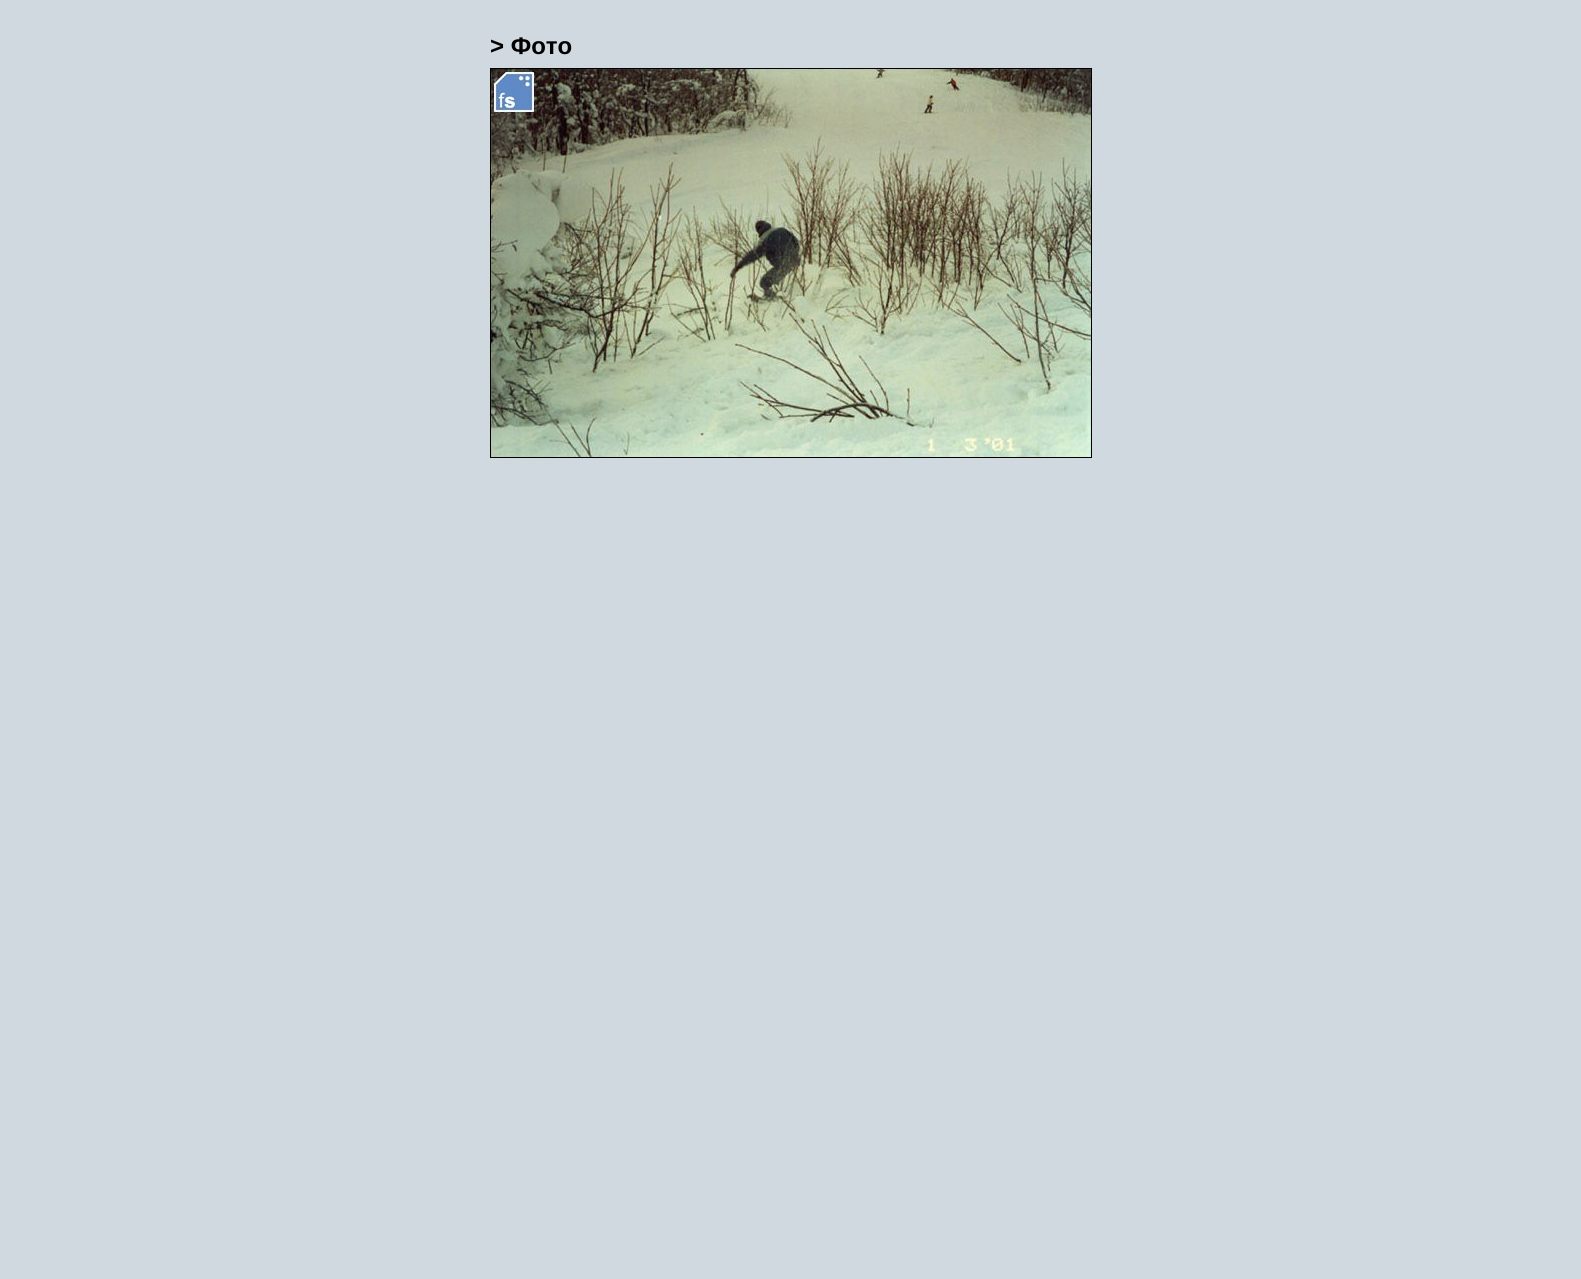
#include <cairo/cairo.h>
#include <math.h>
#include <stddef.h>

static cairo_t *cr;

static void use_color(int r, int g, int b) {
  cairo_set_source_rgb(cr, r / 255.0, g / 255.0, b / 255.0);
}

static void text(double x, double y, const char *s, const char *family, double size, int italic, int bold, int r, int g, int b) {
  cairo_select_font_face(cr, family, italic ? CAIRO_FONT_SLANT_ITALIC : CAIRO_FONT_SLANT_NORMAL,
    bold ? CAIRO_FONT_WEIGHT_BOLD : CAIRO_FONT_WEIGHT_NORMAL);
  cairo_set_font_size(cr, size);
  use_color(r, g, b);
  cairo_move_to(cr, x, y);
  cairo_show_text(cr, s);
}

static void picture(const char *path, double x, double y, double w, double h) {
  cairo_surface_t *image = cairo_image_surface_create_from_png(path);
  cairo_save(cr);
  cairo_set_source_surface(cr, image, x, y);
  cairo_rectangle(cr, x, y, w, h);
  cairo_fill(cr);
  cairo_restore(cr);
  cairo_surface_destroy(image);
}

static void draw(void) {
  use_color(208, 216, 224);
  cairo_paint(cr);
  cairo_rectangle(cr, 490.5, 68.5, 601, 389);
  use_color(0, 0, 0);
  cairo_set_line_width(cr, 1);
  cairo_stroke(cr);
  picture("img_01.png", 491, 69, 600, 388);
  text(490, 54, "> Фото", "Liberation Sans", 24, 0, 1, 0, 0, 0);
}

int main(void) {
  cairo_surface_t *surface = cairo_image_surface_create(CAIRO_FORMAT_RGB24, 1581, 1279);
  cr = cairo_create(surface);
  cairo_font_options_t *options = cairo_font_options_create();
  cairo_font_options_set_hint_metrics(options, CAIRO_HINT_METRICS_OFF);
  cairo_font_options_set_hint_style(options, CAIRO_HINT_STYLE_NONE);
  cairo_set_font_options(cr, options);
  cairo_set_miter_limit(cr, 4);
  draw();
  cairo_surface_write_to_png(surface, "out.png");
  cairo_font_options_destroy(options);
  cairo_destroy(cr);
  cairo_surface_destroy(surface);
  return 0;
}
